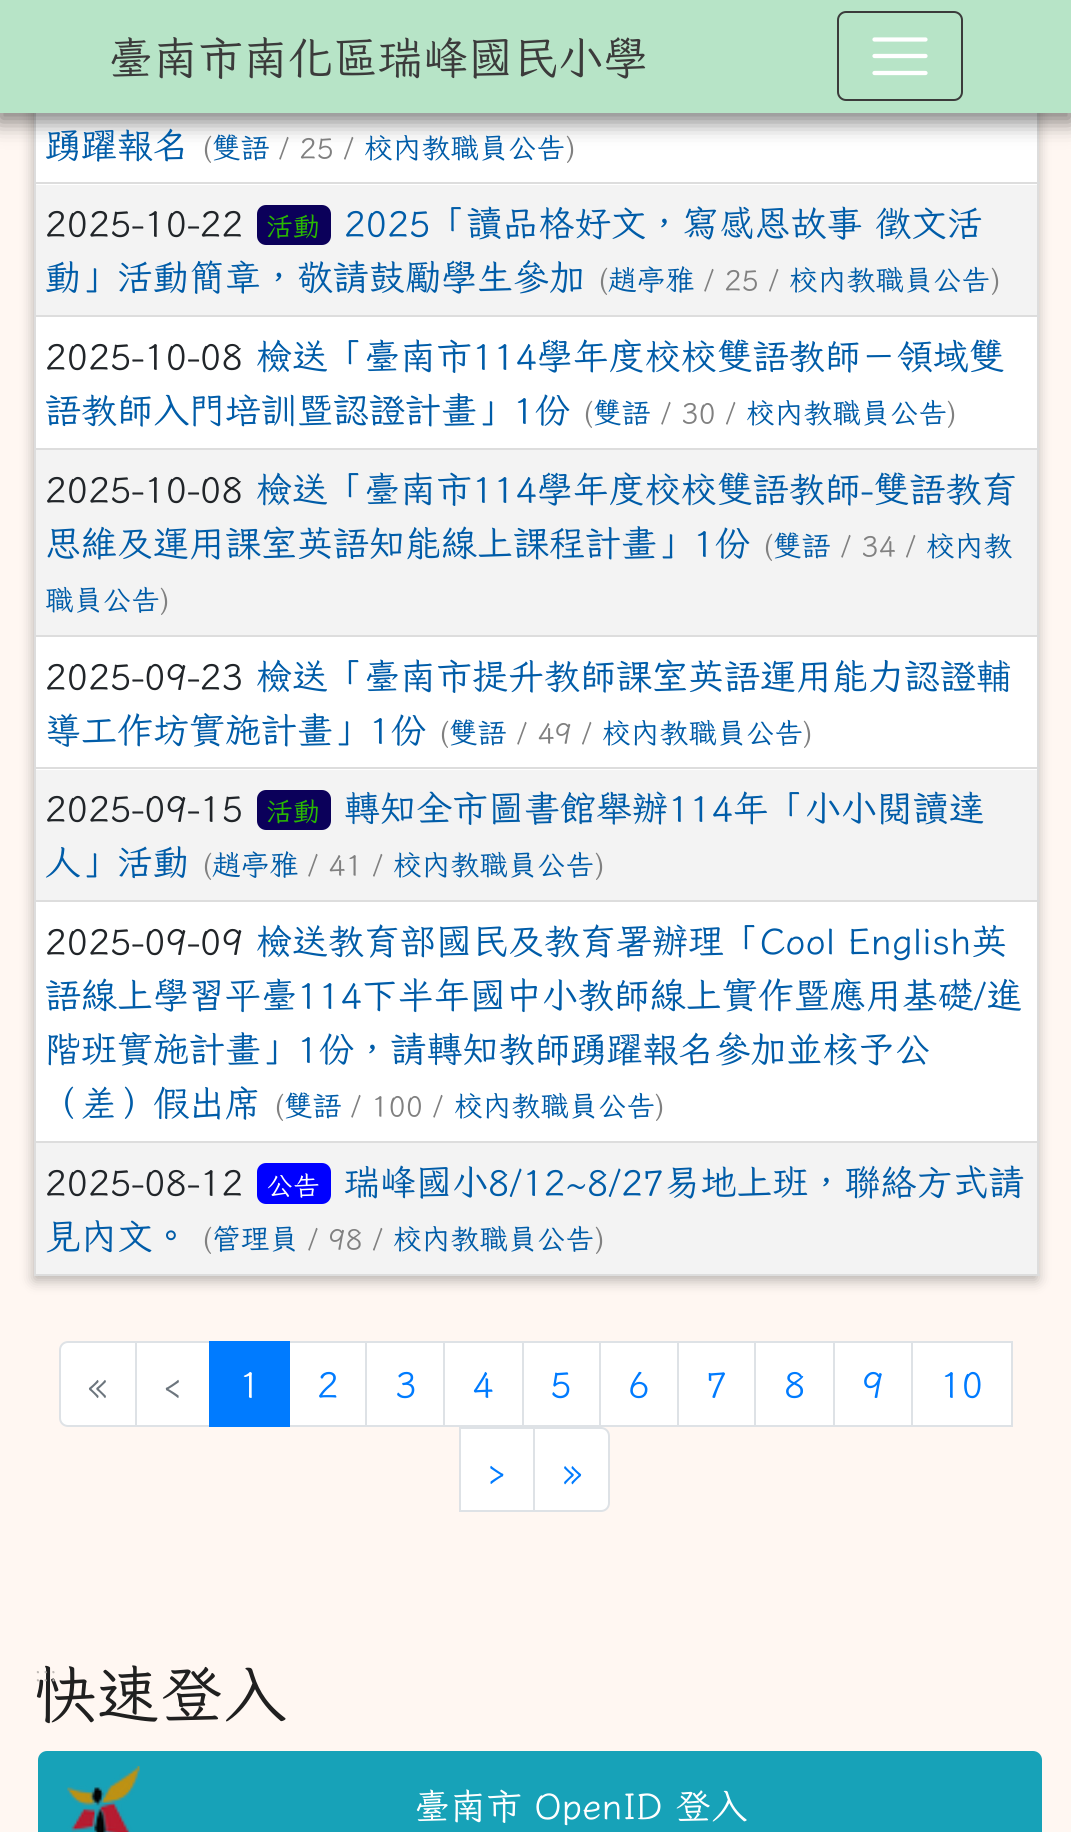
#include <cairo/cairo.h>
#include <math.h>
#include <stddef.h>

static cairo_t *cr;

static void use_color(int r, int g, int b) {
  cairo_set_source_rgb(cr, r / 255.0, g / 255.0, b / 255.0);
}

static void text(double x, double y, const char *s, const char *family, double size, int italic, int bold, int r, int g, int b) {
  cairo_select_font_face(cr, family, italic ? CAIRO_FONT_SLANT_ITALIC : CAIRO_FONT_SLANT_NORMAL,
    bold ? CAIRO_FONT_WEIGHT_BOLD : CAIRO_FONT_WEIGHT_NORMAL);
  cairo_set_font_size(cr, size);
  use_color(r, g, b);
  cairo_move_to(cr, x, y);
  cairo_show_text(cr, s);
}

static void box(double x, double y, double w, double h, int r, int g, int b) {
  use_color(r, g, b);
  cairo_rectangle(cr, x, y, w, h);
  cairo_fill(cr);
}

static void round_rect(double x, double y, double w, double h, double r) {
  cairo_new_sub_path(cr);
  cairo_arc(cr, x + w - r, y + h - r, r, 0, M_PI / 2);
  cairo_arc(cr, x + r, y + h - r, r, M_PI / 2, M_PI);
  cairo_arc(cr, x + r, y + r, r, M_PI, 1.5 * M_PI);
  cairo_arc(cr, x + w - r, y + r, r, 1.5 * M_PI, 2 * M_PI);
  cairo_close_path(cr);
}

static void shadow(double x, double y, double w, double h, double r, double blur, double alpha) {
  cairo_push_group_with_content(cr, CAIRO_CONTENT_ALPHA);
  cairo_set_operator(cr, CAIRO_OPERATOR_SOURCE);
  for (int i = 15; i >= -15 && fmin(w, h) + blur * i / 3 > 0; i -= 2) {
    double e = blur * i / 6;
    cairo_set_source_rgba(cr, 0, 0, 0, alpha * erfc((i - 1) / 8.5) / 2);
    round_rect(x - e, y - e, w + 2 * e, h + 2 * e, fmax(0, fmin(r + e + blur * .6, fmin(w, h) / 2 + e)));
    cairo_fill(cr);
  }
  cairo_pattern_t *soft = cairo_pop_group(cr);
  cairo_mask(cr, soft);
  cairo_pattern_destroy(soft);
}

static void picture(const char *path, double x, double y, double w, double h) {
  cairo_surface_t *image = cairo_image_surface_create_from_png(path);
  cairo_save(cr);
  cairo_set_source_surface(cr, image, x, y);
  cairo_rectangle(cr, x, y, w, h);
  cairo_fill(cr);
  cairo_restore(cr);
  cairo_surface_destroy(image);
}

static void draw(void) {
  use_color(255, 247, 242);
  cairo_paint(cr);
  use_color(0, 0, 0);
  shadow(34, -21, 1003, 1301, 0, 7, 0.3);
  box(36, 113, 1001, 1028, 255, 255, 255);
  box(1037, 113, 2, 1163, 221, 221, 221);
  box(34, 1274, 1006, 2, 221, 221, 221);
  box(34, 1141, 2, 135, 221, 221, 221);
  box(34, 1141, 1006, 2, 221, 221, 221);
  box(34, 900, 2, 243, 221, 221, 221);
  box(34, 900, 1006, 2, 221, 221, 221);
  box(34, 767, 2, 135, 221, 221, 221);
  box(34, 767, 1006, 2, 221, 221, 221);
  box(34, 635, 2, 135, 221, 221, 221);
  box(34, 635, 1006, 2, 221, 221, 221);
  box(34, 448, 2, 189, 221, 221, 221);
  box(34, 448, 1006, 2, 221, 221, 221);
  box(34, 315, 2, 135, 221, 221, 221);
  box(34, 315, 1006, 2, 221, 221, 221);
  box(34, 182, 2, 135, 221, 221, 221);
  box(34, 182, 1006, 2, 221, 221, 221);
  box(34, 113, 2, 72, 221, 221, 221);
  use_color(0, 0, 0);
  shadow(-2, 5, 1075, 117, 0, 11, 0.5);
  box(0, 0, 1071, 113, 183, 228, 199);
  round_rect(838, 12, 124, 88, 8);
  use_color(59, 59, 59);
  cairo_stroke(cr);
  cairo_new_path(cr);
  cairo_move_to(cr, 874.5, 39.5);
  cairo_line_to(cr, 925.5, 39.5);
  cairo_move_to(cr, 874.5, 56);
  cairo_line_to(cr, 925.5, 56);
  cairo_move_to(cr, 874.5, 73);
  cairo_line_to(cr, 925.5, 73);
  use_color(255, 255, 255);
  cairo_set_line_width(cr, 4.2);
  cairo_set_line_cap(cr, CAIRO_LINE_CAP_ROUND);
  cairo_stroke(cr);
  box(36, 185, 1001, 130, 243, 243, 243);
  use_color(11, 0, 90);
  round_rect(257, 205, 74, 40, 9);
  cairo_fill(cr);
  box(36, 450, 1001, 185, 243, 243, 243);
  box(36, 770, 1001, 130, 243, 243, 243);
  use_color(11, 0, 90);
  round_rect(257, 790, 74, 40, 9);
  cairo_fill(cr);
  box(36, 1143, 1001, 131, 243, 243, 243);
  use_color(0, 0, 255);
  round_rect(257, 1163, 74, 41, 9);
  cairo_fill(cr);
  use_color(255, 255, 255);
  cairo_new_path(cr);
  cairo_move_to(cr, 68, 1342);
  cairo_line_to(cr, 136, 1342);
  cairo_line_to(cr, 136, 1426);
  cairo_line_to(cr, 68, 1426);
  cairo_curve_to(cr, 63.5, 1426, 60, 1422.5, 60, 1418);
  cairo_line_to(cr, 60, 1350);
  cairo_curve_to(cr, 60, 1345.5, 63.5, 1342, 68, 1342);
  cairo_close_path(cr);
  cairo_fill_preserve(cr);
  use_color(222, 226, 230);
  cairo_set_line_width(cr, 2);
  cairo_set_line_cap(cr, CAIRO_LINE_CAP_BUTT);
  cairo_stroke(cr);
  box(137, 1343, 72, 82, 255, 255, 255);
  cairo_rectangle(cr, 136, 1342, 75, 84);
  use_color(222, 226, 230);
  cairo_stroke(cr);
  use_color(255, 255, 255);
  cairo_rectangle(cr, 289, 1342, 77, 84);
  cairo_fill_preserve(cr);
  use_color(222, 226, 230);
  cairo_stroke(cr);
  box(209, 1341, 81, 86, 0, 123, 255);
  box(367, 1343, 76, 82, 255, 255, 255);
  cairo_rectangle(cr, 366, 1342, 79, 84);
  use_color(222, 226, 230);
  cairo_stroke(cr);
  use_color(255, 255, 255);
  cairo_rectangle(cr, 444, 1342, 79, 84);
  cairo_fill_preserve(cr);
  use_color(222, 226, 230);
  cairo_stroke(cr);
  use_color(255, 255, 255);
  cairo_rectangle(cr, 523, 1342, 77, 84);
  cairo_fill_preserve(cr);
  use_color(222, 226, 230);
  cairo_stroke(cr);
  box(601, 1343, 76, 82, 255, 255, 255);
  cairo_rectangle(cr, 600, 1342, 79, 84);
  use_color(222, 226, 230);
  cairo_stroke(cr);
  use_color(255, 255, 255);
  cairo_rectangle(cr, 678, 1342, 77, 84);
  cairo_fill_preserve(cr);
  use_color(222, 226, 230);
  cairo_stroke(cr);
  use_color(255, 255, 255);
  cairo_rectangle(cr, 755, 1342, 79, 84);
  cairo_fill_preserve(cr);
  use_color(222, 226, 230);
  cairo_stroke(cr);
  box(835, 1343, 76, 82, 255, 255, 255);
  cairo_rectangle(cr, 834, 1342, 79, 84);
  use_color(222, 226, 230);
  cairo_stroke(cr);
  use_color(255, 255, 255);
  cairo_rectangle(cr, 912, 1342, 100, 84);
  cairo_fill_preserve(cr);
  use_color(222, 226, 230);
  cairo_stroke(cr);
  box(461, 1429, 72, 81, 255, 255, 255);
  cairo_rectangle(cr, 460, 1428, 75, 83);
  use_color(222, 226, 230);
  cairo_stroke(cr);
  use_color(255, 255, 255);
  cairo_new_path(cr);
  cairo_move_to(cr, 534, 1428);
  cairo_line_to(cr, 601, 1428);
  cairo_curve_to(cr, 605.5, 1428, 609, 1431.5, 609, 1436);
  cairo_line_to(cr, 609, 1503);
  cairo_curve_to(cr, 609, 1507.5, 605.5, 1511, 601, 1511);
  cairo_line_to(cr, 534, 1511);
  cairo_close_path(cr);
  cairo_fill_preserve(cr);
  use_color(222, 226, 230);
  cairo_stroke(cr);
  use_color(23, 162, 184);
  round_rect(39, 1752, 1002, 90, 8);
  cairo_fill_preserve(cr);
  cairo_stroke(cr);
  picture("img_01.png", 67, 1766, 73, 66);
  text(108, 74, "臺南市南化區瑞峰國民小學", "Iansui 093", 45, 0, 0, 59, 59, 59);
  text(45, 158, "踴躍報名", "Iansui 093", 36, 0, 0, 0, 92, 168);
  text(202, 158, "(", "Iansui 093", 28.75, 0, 0, 128, 128, 128);
  text(212, 158, "雙語", "Iansui 093", 28.75, 0, 0, 0, 92, 168);
  text(279, 158, "/ 25 /", "Iansui 093", 28.75, 0, 0, 128, 128, 128);
  text(364, 158, "校內教職員公告", "Iansui 093", 28.75, 0, 0, 0, 92, 168);
  text(566, 158, ")", "Iansui 093", 28.75, 0, 0, 128, 128, 128);
  text(45, 236, "2025-10-22", "Iansui 093", 36, 0, 0, 33, 37, 41);
  text(266, 236, "活動", "Iansui 093", 27, 0, 0, 41, 185, 0);
  text(344, 236, "2025「讀品格好文，寫感恩故事 徵文活", "Iansui 093", 36, 0, 0, 0, 92, 168);
  text(45, 290, "動」活動簡章，敬請鼓勵學生參加", "Iansui 093", 36, 0, 0, 0, 92, 168);
  text(598, 290, "(", "Iansui 093", 28.75, 0, 0, 128, 128, 128);
  text(608, 290, "趙亭雅", "Iansui 093", 28.75, 0, 0, 0, 92, 168);
  text(704, 290, "/ 25 /", "Iansui 093", 28.75, 0, 0, 128, 128, 128);
  text(789, 290, "校內教職員公告", "Iansui 093", 28.75, 0, 0, 0, 92, 168);
  text(991, 290, ")", "Iansui 093", 28.75, 0, 0, 128, 128, 128);
  text(45, 369, "2025-10-08", "Iansui 093", 36, 0, 0, 33, 37, 41);
  text(256, 369, "檢送「臺南市114學年度校校雙語教師－領域雙", "Iansui 093", 36, 0, 0, 0, 92, 168);
  text(45, 423, "語教師入門培訓暨認證計畫」1份", "Iansui 093", 36, 0, 0, 0, 92, 168);
  text(583, 423, "(", "Iansui 093", 28.75, 0, 0, 128, 128, 128);
  text(593, 423, "雙語", "Iansui 093", 28.75, 0, 0, 0, 92, 168);
  text(661, 423, "/ 30 /", "Iansui 093", 28.75, 0, 0, 128, 128, 128);
  text(746, 423, "校內教職員公告", "Iansui 093", 28.75, 0, 0, 0, 92, 168);
  text(947, 423, ")", "Iansui 093", 28.75, 0, 0, 128, 128, 128);
  text(45, 502, "2025-10-08", "Iansui 093", 36, 0, 0, 33, 37, 41);
  text(256, 502, "檢送「臺南市114學年度校校雙語教師-雙語教育", "Iansui 093", 36, 0, 0, 0, 92, 168);
  text(45, 556, "思維及運用課室英語知能線上課程計畫」1份", "Iansui 093", 36, 0, 0, 0, 92, 168);
  text(763, 556, "(", "Iansui 093", 28.75, 0, 0, 128, 128, 128);
  text(773, 556, "雙語", "Iansui 093", 28.75, 0, 0, 0, 92, 168);
  text(841, 556, "/ 34 /", "Iansui 093", 28.75, 0, 0, 128, 128, 128);
  text(926, 556, "校內教", "Iansui 093", 28.75, 0, 0, 0, 92, 168);
  text(45, 610, "職員公告", "Iansui 093", 28.75, 0, 0, 0, 92, 168);
  text(160, 610, ")", "Iansui 093", 28.75, 0, 0, 128, 128, 128);
  text(45, 689, "2025-09-23", "Iansui 093", 36, 0, 0, 33, 37, 41);
  text(256, 689, "檢送「臺南市提升教師課室英語運用能力認證輔", "Iansui 093", 36, 0, 0, 0, 92, 168);
  text(45, 743, "導工作坊實施計畫」1份", "Iansui 093", 36, 0, 0, 0, 92, 168);
  text(439, 743, "(", "Iansui 093", 28.75, 0, 0, 128, 128, 128);
  text(449, 743, "雙語", "Iansui 093", 28.75, 0, 0, 0, 92, 168);
  text(517, 743, "/ 49 /", "Iansui 093", 28.75, 0, 0, 128, 128, 128);
  text(602, 743, "校內教職員公告", "Iansui 093", 28.75, 0, 0, 0, 92, 168);
  text(803, 743, ")", "Iansui 093", 28.75, 0, 0, 128, 128, 128);
  text(45, 821, "2025-09-15", "Iansui 093", 36, 0, 0, 33, 37, 41);
  text(266, 821, "活動", "Iansui 093", 27, 0, 0, 41, 185, 0);
  text(344, 821, "轉知全市圖書館舉辦114年「小小閱讀達", "Iansui 093", 36, 0, 0, 0, 92, 168);
  text(45, 875, "人」活動", "Iansui 093", 36, 0, 0, 0, 92, 168);
  text(202, 875, "(", "Iansui 093", 28.75, 0, 0, 128, 128, 128);
  text(212, 875, "趙亭雅", "Iansui 093", 28.75, 0, 0, 0, 92, 168);
  text(308, 875, "/ 41 /", "Iansui 093", 28.75, 0, 0, 128, 128, 128);
  text(393, 875, "校內教職員公告", "Iansui 093", 28.75, 0, 0, 0, 92, 168);
  text(595, 875, ")", "Iansui 093", 28.75, 0, 0, 128, 128, 128);
  text(45, 954, "2025-09-09", "Iansui 093", 36, 0, 0, 33, 37, 41);
  text(256, 954, "檢送教育部國民及教育署辦理「Cool English英", "Iansui 093", 36, 0, 0, 0, 92, 168);
  text(45, 1008, "語線上學習平臺114下半年國中小教師線上實作暨應用基礎/進", "Iansui 093", 36, 0, 0, 0, 92, 168);
  text(45, 1062, "階班實施計畫」1份，請轉知教師踴躍報名參加並核予公", "Iansui 093", 36, 0, 0, 0, 92, 168);
  text(45, 1116, "（差）假出席", "Iansui 093", 36, 0, 0, 0, 92, 168);
  text(274, 1116, "(", "Iansui 093", 28.75, 0, 0, 128, 128, 128);
  text(284, 1116, "雙語", "Iansui 093", 28.75, 0, 0, 0, 92, 168);
  text(351, 1116, "/ 100 /", "Iansui 093", 28.75, 0, 0, 128, 128, 128);
  text(454, 1116, "校內教職員公告", "Iansui 093", 28.75, 0, 0, 0, 92, 168);
  text(655, 1116, ")", "Iansui 093", 28.75, 0, 0, 128, 128, 128);
  text(45, 1195, "2025-08-12", "Iansui 093", 36, 0, 0, 33, 37, 41);
  text(266, 1195, "公告", "Iansui 093", 27, 0, 0, 255, 255, 255);
  text(344, 1195, "瑞峰國小8/12~8/27易地上班，聯絡方式請", "Iansui 093", 36, 0, 0, 0, 92, 168);
  text(45, 1249, "見內文。", "Iansui 093", 36, 0, 0, 0, 92, 168);
  text(202, 1249, "(", "Iansui 093", 28.75, 0, 0, 128, 128, 128);
  text(212, 1249, "管理員", "Iansui 093", 28.75, 0, 0, 0, 92, 168);
  text(308, 1249, "/ 98 /", "Iansui 093", 28.75, 0, 0, 128, 128, 128);
  text(393, 1249, "校內教職員公告", "Iansui 093", 28.75, 0, 0, 0, 92, 168);
  text(595, 1249, ")", "Iansui 093", 28.75, 0, 0, 128, 128, 128);
  text(88, 1397, "«", "Iansui 093", 36, 0, 0, 108, 117, 125);
  text(163, 1397, "‹", "Iansui 093", 36, 0, 0, 108, 117, 125);
  text(239, 1397, "1", "Iansui 093", 36, 0, 0, 255, 255, 255);
  text(317, 1397, "2", "Iansui 093", 36, 0, 0, 0, 123, 255);
  text(395, 1397, "3", "Iansui 093", 36, 0, 0, 0, 123, 255);
  text(472, 1397, "4", "Iansui 093", 36, 0, 0, 0, 123, 255);
  text(550, 1397, "5", "Iansui 093", 36, 0, 0, 0, 123, 255);
  text(628, 1397, "6", "Iansui 093", 36, 0, 0, 0, 123, 255);
  text(706, 1397, "7", "Iansui 093", 36, 0, 0, 0, 123, 255);
  text(784, 1397, "8", "Iansui 093", 36, 0, 0, 0, 123, 255);
  text(862, 1397, "9", "Iansui 093", 36, 0, 0, 0, 123, 255);
  text(940, 1397, "10", "Iansui 093", 36, 0, 0, 0, 123, 255);
  text(487, 1483, "›", "Iansui 093", 36, 0, 0, 0, 123, 255);
  text(563, 1483, "»", "Iansui 093", 36, 0, 0, 0, 123, 255);
  text(34, 1717, "快速登入", "Iansui 093", 63, 0, 0, 32, 32, 32);
  text(414, 1819, "臺南市 OpenID 登入", "Iansui 093", 36, 0, 0, 255, 255, 255);
  text(34, 1681, ":::", "Iansui 093", 22, 0, 0, 192, 186, 182);
}

int main(void) {
  cairo_surface_t *surface = cairo_image_surface_create(CAIRO_FORMAT_RGB24, 1071, 1832);
  cr = cairo_create(surface);
  cairo_font_options_t *options = cairo_font_options_create();
  cairo_font_options_set_hint_metrics(options, CAIRO_HINT_METRICS_OFF);
  cairo_font_options_set_hint_style(options, CAIRO_HINT_STYLE_NONE);
  cairo_set_font_options(cr, options);
  cairo_set_miter_limit(cr, 4);
  draw();
  cairo_surface_write_to_png(surface, "out.png");
  cairo_font_options_destroy(options);
  cairo_destroy(cr);
  cairo_surface_destroy(surface);
  return 0;
}
